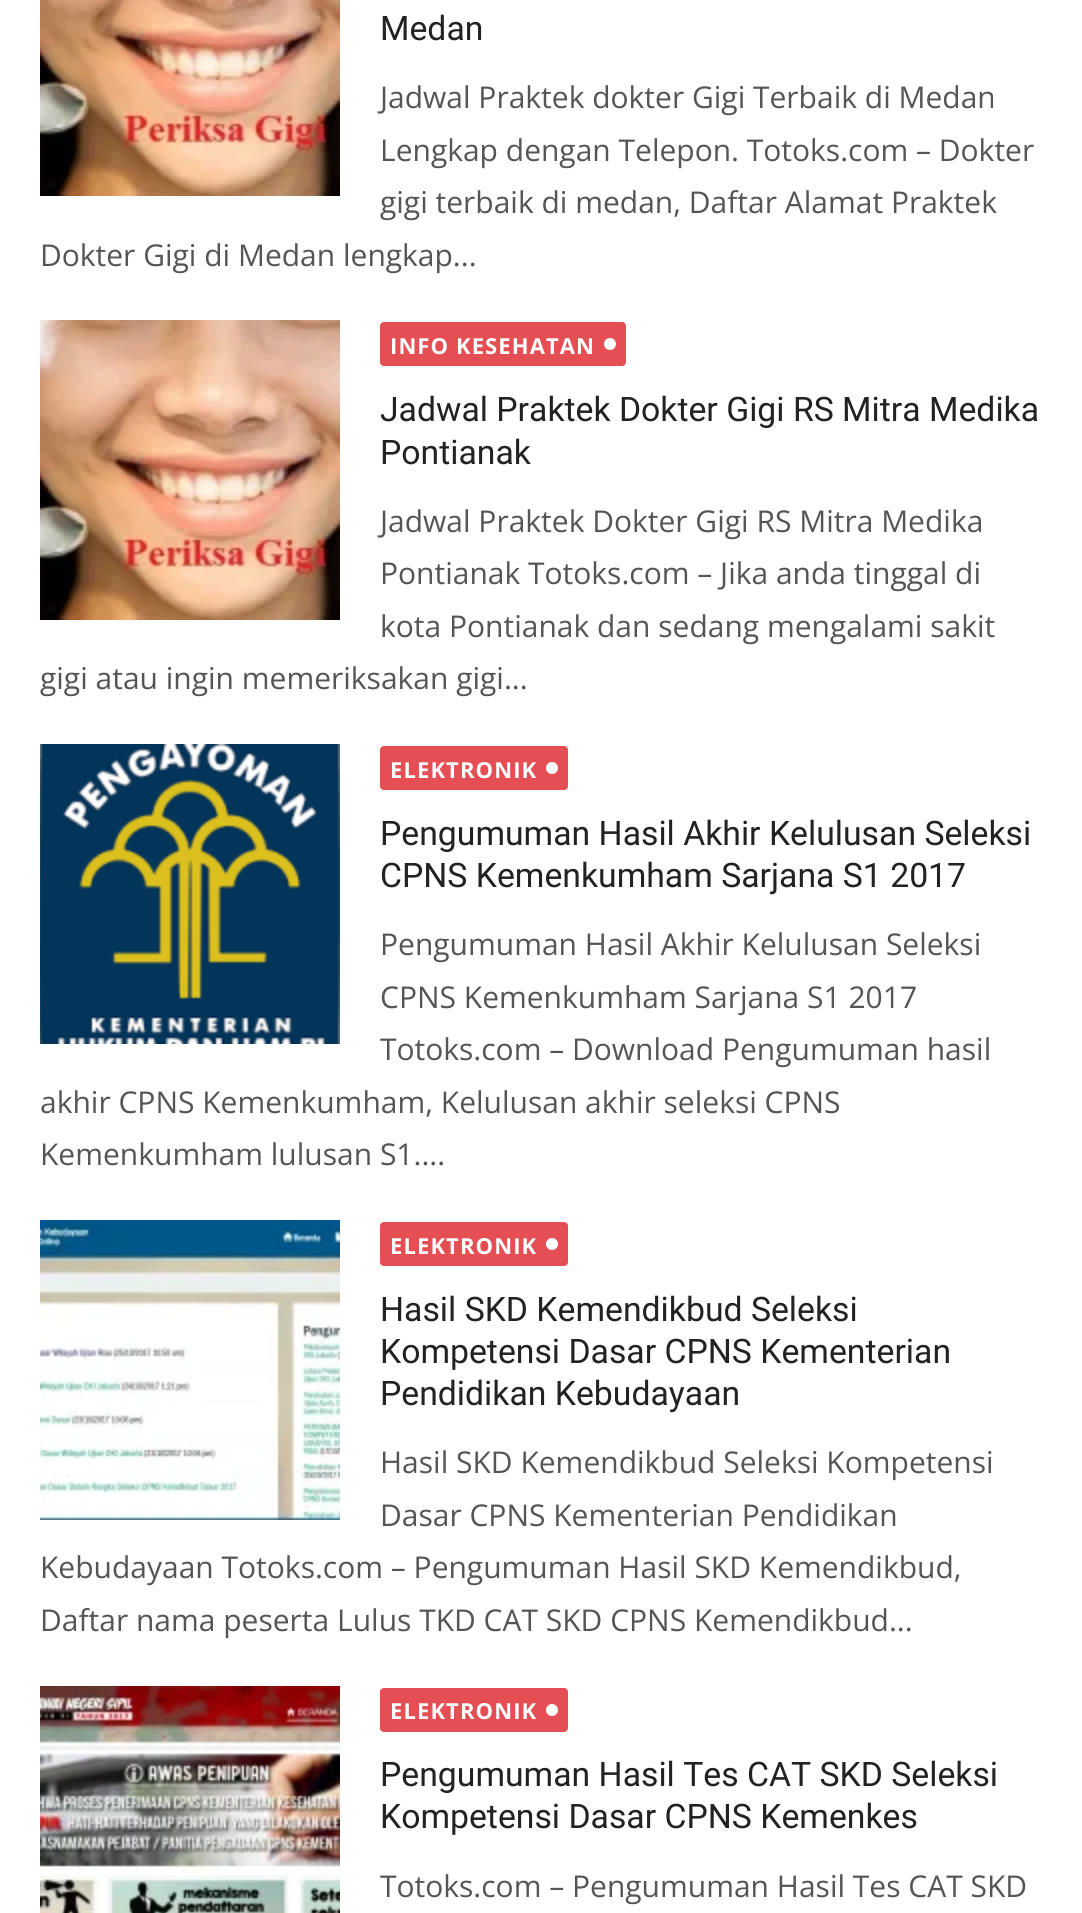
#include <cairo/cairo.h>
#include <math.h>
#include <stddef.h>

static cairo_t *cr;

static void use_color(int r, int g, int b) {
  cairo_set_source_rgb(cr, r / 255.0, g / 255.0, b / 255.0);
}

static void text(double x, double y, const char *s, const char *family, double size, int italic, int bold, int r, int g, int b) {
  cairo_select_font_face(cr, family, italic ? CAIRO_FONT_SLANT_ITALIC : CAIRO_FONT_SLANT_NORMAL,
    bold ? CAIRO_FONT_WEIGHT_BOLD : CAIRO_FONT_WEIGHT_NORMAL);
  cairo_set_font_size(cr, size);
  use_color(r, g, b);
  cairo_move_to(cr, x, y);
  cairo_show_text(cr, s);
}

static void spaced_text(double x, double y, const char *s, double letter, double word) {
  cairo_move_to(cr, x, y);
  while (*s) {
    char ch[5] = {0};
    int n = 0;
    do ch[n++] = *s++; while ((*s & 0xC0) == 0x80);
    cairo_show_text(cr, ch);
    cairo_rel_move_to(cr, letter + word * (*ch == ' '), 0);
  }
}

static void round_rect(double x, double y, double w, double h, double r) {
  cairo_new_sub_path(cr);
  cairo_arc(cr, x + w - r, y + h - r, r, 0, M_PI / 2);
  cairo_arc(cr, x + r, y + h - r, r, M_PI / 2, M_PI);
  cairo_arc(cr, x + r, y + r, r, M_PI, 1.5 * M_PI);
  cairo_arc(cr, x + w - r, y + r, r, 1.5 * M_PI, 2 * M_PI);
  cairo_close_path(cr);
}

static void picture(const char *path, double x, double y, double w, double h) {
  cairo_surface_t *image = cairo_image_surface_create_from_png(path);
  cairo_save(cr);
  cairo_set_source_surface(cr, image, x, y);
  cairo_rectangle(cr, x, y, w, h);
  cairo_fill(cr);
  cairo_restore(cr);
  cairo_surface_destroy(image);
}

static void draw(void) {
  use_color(255, 255, 255);
  cairo_paint(cr);
  picture("img_01.png", 40, 0, 300, 196);
  picture("img_02.png", 40, 320, 300, 300);
  use_color(229, 78, 83);
  round_rect(380, 322, 246, 44, 4);
  cairo_fill(cr);
  use_color(255, 255, 255);
  cairo_arc(cr, 610, 344, 6, 0, 2 * M_PI);
  cairo_fill(cr);
  picture("img_03.png", 40, 744, 300, 300);
  use_color(229, 78, 83);
  round_rect(380, 746, 188, 44, 4);
  cairo_fill(cr);
  use_color(255, 255, 255);
  cairo_arc(cr, 552, 768, 6, 0, 2 * M_PI);
  cairo_fill(cr);
  picture("img_04.png", 40, 1220, 300, 300);
  use_color(229, 78, 83);
  round_rect(380, 1222, 188, 44, 4);
  cairo_fill(cr);
  use_color(255, 255, 255);
  cairo_arc(cr, 552, 1244, 6, 0, 2 * M_PI);
  cairo_fill(cr);
  picture("img_05.png", 40, 1686, 300, 227);
  use_color(229, 78, 83);
  round_rect(380, 1688, 188, 44, 4);
  cairo_fill(cr);
  use_color(255, 255, 255);
  cairo_arc(cr, 552, 1710, 6, 0, 2 * M_PI);
  cairo_fill(cr);
  text(380, 40, "Medan", "Roboto", 33.75, 0, 0, 34, 34, 34);
  text(380, 108, "Jadwal Praktek dokter Gigi Terbaik di Medan", "Open Sans", 30, 0, 0, 85, 85, 85);
  text(380, 161, "Lengkap dengan Telepon. Totoks.com – Dokter", "Open Sans", 30, 0, 0, 85, 85, 85);
  text(380, 213, "gigi terbaik di medan, Daftar Alamat Praktek", "Open Sans", 30, 0, 0, 85, 85, 85);
  text(40, 266, "Dokter Gigi di Medan lengkap...", "Open Sans", 30, 0, 0, 85, 85, 85);
  cairo_select_font_face(cr, "Open Sans", CAIRO_FONT_SLANT_NORMAL, CAIRO_FONT_WEIGHT_BOLD);
  cairo_set_font_size(cr, 22);
  use_color(255, 255, 255);
  spaced_text(390, 354, "INFO KESEHATAN", 1.1, 0);
  text(380, 421, "Jadwal Praktek Dokter Gigi RS Mitra Medika", "Roboto", 33.75, 0, 0, 34, 34, 34);
  text(380, 464, "Pontianak", "Roboto", 33.75, 0, 0, 34, 34, 34);
  text(380, 532, "Jadwal Praktek Dokter Gigi RS Mitra Medika", "Open Sans", 30, 0, 0, 85, 85, 85);
  text(380, 584, "Pontianak Totoks.com – Jika anda tinggal di", "Open Sans", 30, 0, 0, 85, 85, 85);
  text(380, 637, "kota Pontianak dan sedang mengalami sakit", "Open Sans", 30, 0, 0, 85, 85, 85);
  text(40, 689, "gigi atau ingin memeriksakan gigi...", "Open Sans", 30, 0, 0, 85, 85, 85);
  cairo_select_font_face(cr, "Open Sans", CAIRO_FONT_SLANT_NORMAL, CAIRO_FONT_WEIGHT_BOLD);
  cairo_set_font_size(cr, 22);
  use_color(255, 255, 255);
  spaced_text(390, 778, "ELEKTRONIK", 1.1, 0);
  text(380, 845, "Pengumuman Hasil Akhir Kelulusan Seleksi", "Roboto", 33.75, 0, 0, 34, 34, 34);
  text(380, 887, "CPNS Kemenkumham Sarjana S1 2017", "Roboto", 33.75, 0, 0, 34, 34, 34);
  text(380, 955, "Pengumuman Hasil Akhir Kelulusan Seleksi", "Open Sans", 30, 0, 0, 85, 85, 85);
  text(380, 1008, "CPNS Kemenkumham Sarjana S1 2017", "Open Sans", 30, 0, 0, 85, 85, 85);
  text(380, 1060, "Totoks.com – Download Pengumuman hasil", "Open Sans", 30, 0, 0, 85, 85, 85);
  text(40, 1113, "akhir CPNS Kemenkumham, Kelulusan akhir seleksi CPNS", "Open Sans", 30, 0, 0, 85, 85, 85);
  text(40, 1165, "Kemenkumham lulusan S1....", "Open Sans", 30, 0, 0, 85, 85, 85);
  cairo_select_font_face(cr, "Open Sans", CAIRO_FONT_SLANT_NORMAL, CAIRO_FONT_WEIGHT_BOLD);
  cairo_set_font_size(cr, 22);
  use_color(255, 255, 255);
  spaced_text(390, 1254, "ELEKTRONIK", 1.1, 0);
  text(380, 1321, "Hasil SKD Kemendikbud Seleksi", "Roboto", 33.75, 0, 0, 34, 34, 34);
  text(380, 1363, "Kompetensi Dasar CPNS Kementerian", "Roboto", 33.75, 0, 0, 34, 34, 34);
  text(380, 1405, "Pendidikan Kebudayaan", "Roboto", 33.75, 0, 0, 34, 34, 34);
  text(380, 1473, "Hasil SKD Kemendikbud Seleksi Kompetensi", "Open Sans", 30, 0, 0, 85, 85, 85);
  text(380, 1526, "Dasar CPNS Kementerian Pendidikan", "Open Sans", 30, 0, 0, 85, 85, 85);
  text(40, 1578, "Kebudayaan Totoks.com – Pengumuman Hasil SKD Kemendikbud,", "Open Sans", 30, 0, 0, 85, 85, 85);
  text(40, 1631, "Daftar nama peserta Lulus TKD CAT SKD CPNS Kemendikbud...", "Open Sans", 30, 0, 0, 85, 85, 85);
  cairo_select_font_face(cr, "Open Sans", CAIRO_FONT_SLANT_NORMAL, CAIRO_FONT_WEIGHT_BOLD);
  cairo_set_font_size(cr, 22);
  use_color(255, 255, 255);
  spaced_text(390, 1719, "ELEKTRONIK", 1.1, 0);
  text(380, 1786, "Pengumuman Hasil Tes CAT SKD Seleksi", "Roboto", 33.75, 0, 0, 34, 34, 34);
  text(380, 1828, "Kompetensi Dasar CPNS Kemenkes", "Roboto", 33.75, 0, 0, 34, 34, 34);
  text(380, 1897, "Totoks.com – Pengumuman Hasil Tes CAT SKD", "Open Sans", 30, 0, 0, 85, 85, 85);
}

int main(void) {
  cairo_surface_t *surface = cairo_image_surface_create(CAIRO_FORMAT_RGB24, 1082, 1913);
  cr = cairo_create(surface);
  cairo_font_options_t *options = cairo_font_options_create();
  cairo_font_options_set_hint_metrics(options, CAIRO_HINT_METRICS_OFF);
  cairo_font_options_set_hint_style(options, CAIRO_HINT_STYLE_NONE);
  cairo_set_font_options(cr, options);
  cairo_set_miter_limit(cr, 4);
  draw();
  cairo_surface_write_to_png(surface, "out.png");
  cairo_font_options_destroy(options);
  cairo_destroy(cr);
  cairo_surface_destroy(surface);
  return 0;
}
